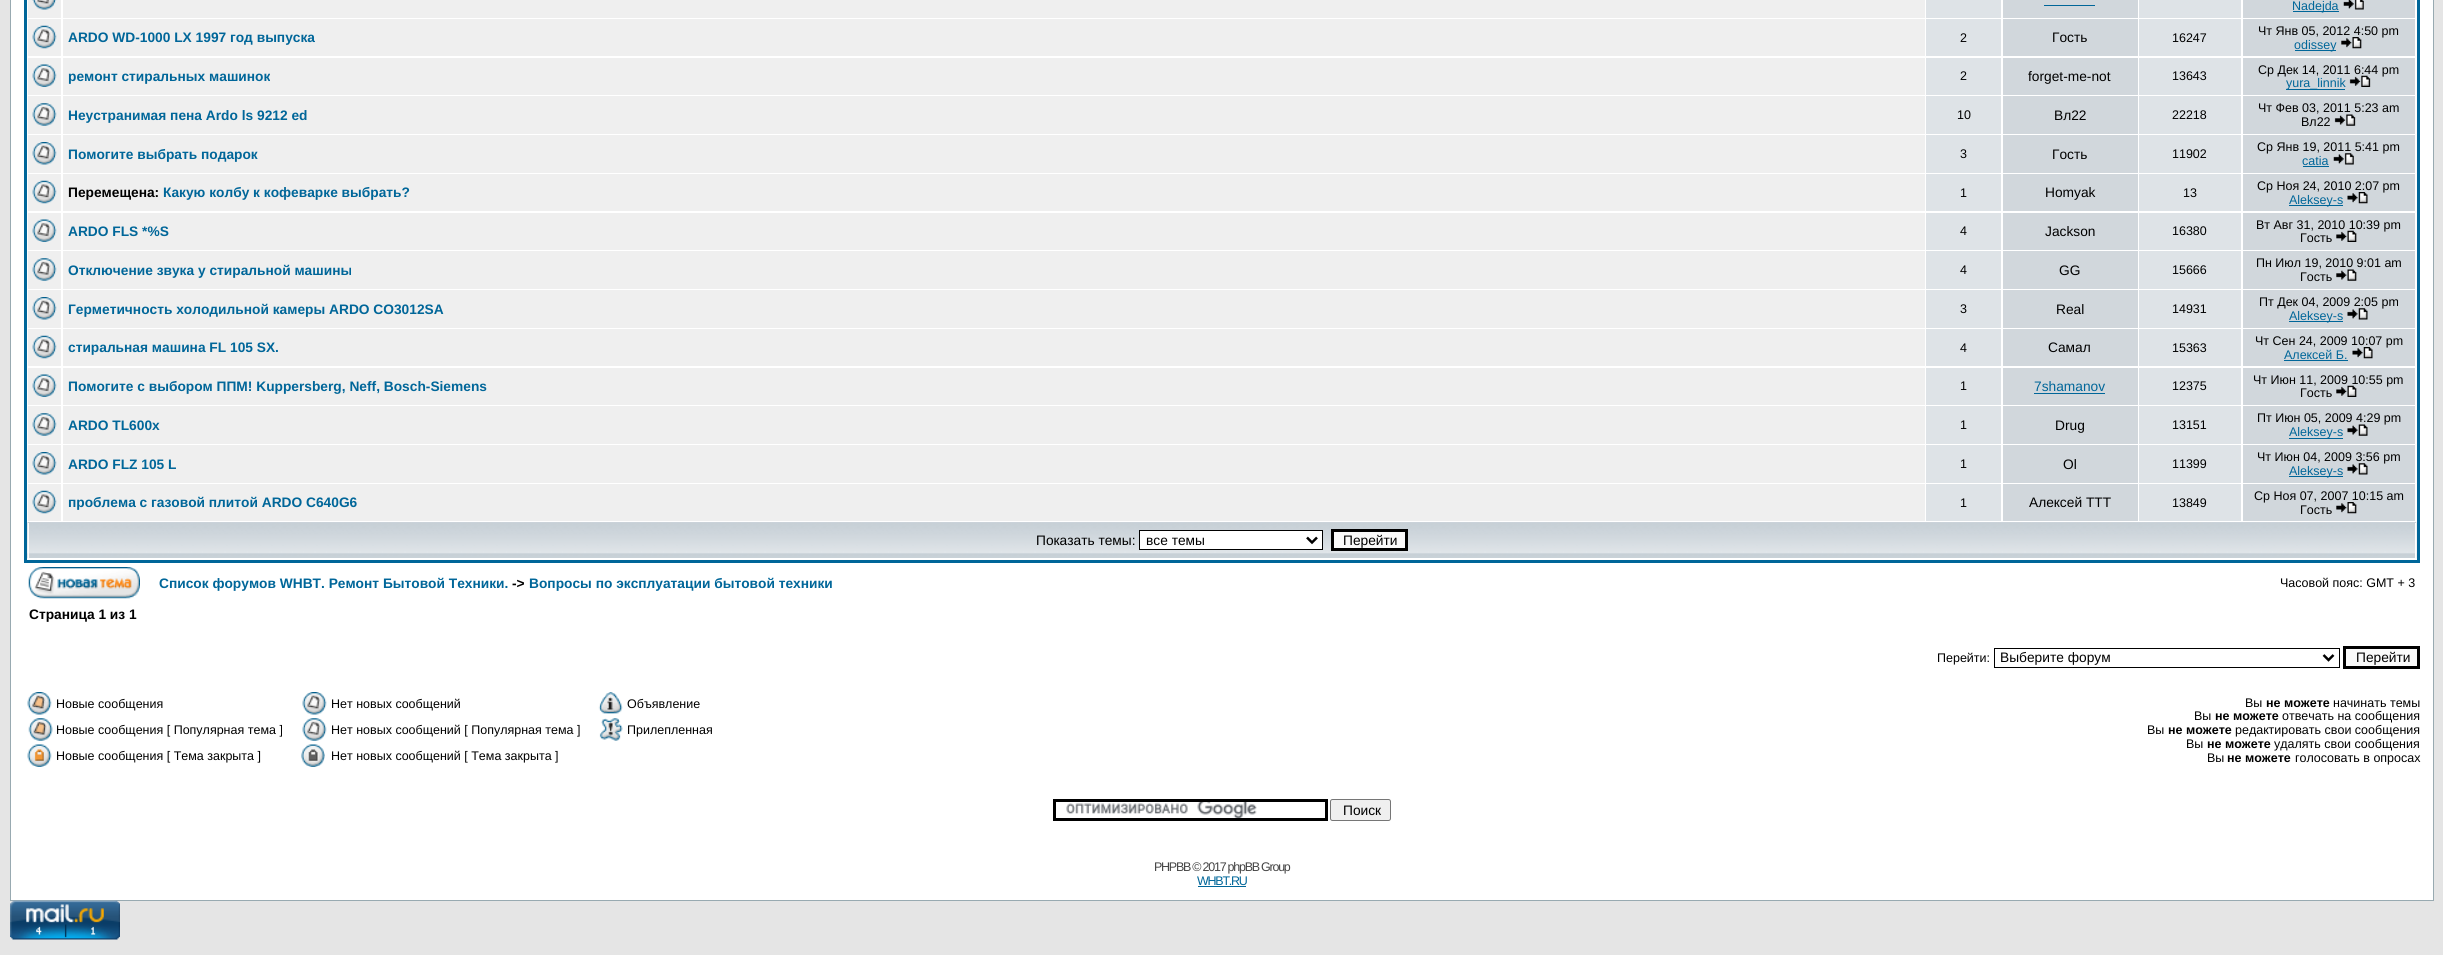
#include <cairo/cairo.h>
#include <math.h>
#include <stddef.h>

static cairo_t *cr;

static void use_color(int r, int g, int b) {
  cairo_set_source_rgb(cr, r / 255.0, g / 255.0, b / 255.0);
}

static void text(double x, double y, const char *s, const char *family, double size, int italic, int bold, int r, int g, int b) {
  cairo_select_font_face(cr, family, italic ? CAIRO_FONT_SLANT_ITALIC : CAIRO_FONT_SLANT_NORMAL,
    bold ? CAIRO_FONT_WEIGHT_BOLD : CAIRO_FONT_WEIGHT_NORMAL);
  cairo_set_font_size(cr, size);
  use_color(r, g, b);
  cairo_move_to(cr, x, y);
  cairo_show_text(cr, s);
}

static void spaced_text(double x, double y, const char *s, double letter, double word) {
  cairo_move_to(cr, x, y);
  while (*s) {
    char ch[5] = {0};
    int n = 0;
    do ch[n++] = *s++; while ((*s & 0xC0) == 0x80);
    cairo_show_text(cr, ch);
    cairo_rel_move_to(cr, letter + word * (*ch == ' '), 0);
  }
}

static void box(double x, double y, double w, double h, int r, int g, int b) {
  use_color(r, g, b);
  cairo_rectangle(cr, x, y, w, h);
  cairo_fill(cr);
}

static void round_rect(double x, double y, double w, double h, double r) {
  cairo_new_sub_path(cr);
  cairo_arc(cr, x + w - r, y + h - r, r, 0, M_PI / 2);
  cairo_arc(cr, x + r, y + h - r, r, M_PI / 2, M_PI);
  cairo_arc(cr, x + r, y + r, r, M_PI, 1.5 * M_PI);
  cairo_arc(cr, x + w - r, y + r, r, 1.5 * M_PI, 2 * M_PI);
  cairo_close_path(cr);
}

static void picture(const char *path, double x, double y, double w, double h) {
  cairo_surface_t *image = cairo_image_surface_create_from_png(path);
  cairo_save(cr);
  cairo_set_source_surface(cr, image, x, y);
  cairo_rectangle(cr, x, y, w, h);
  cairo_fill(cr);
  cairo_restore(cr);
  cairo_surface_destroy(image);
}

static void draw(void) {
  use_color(229, 229, 229);
  cairo_paint(cr);
  use_color(255, 255, 255);
  cairo_rectangle(cr, 10.5, -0.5, 2423, 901);
  cairo_fill_preserve(cr);
  use_color(152, 170, 177);
  cairo_set_line_width(cr, 1);
  cairo_stroke(cr);
  cairo_rectangle(cr, 25.5, -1.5, 2393, 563);
  use_color(0, 102, 153);
  cairo_set_line_width(cr, 3);
  cairo_stroke(cr);
  box(28, 0, 33, 18, 239, 239, 239);
  picture("img_01.png", 32, 0, 25, 10);
  box(63, 0, 1862, 18, 239, 239, 239);
  box(1926, 0, 75, 18, 222, 227, 231);
  box(2003, 0, 135, 18, 209, 215, 220);
  box(2044, 5, 51, 1, 0, 102, 153);
  box(2139, 0, 102, 18, 222, 227, 231);
  box(2243, 0, 172, 18, 209, 215, 220);
  box(2293, 11, 46, 1, 0, 102, 153);
  picture("img_02.png", 2343, 0, 21, 10);
  box(28, 19, 33, 37, 239, 239, 239);
  picture("img_03.png", 32, 25, 25, 24);
  box(63, 19, 1862, 37, 239, 239, 239);
  box(1926, 19, 75, 37, 222, 227, 231);
  box(2003, 19, 135, 37, 209, 215, 220);
  box(2139, 19, 102, 37, 222, 227, 231);
  box(2243, 19, 172, 37, 209, 215, 220);
  box(2295, 50, 41, 1, 0, 102, 153);
  box(28, 58, 33, 37, 239, 239, 239);
  picture("img_05.png", 32, 64, 25, 23);
  box(63, 58, 1862, 37, 239, 239, 239);
  box(1926, 58, 75, 37, 222, 227, 231);
  box(2003, 58, 135, 37, 209, 215, 220);
  box(2139, 58, 102, 37, 222, 227, 231);
  box(2243, 58, 172, 37, 209, 215, 220);
  box(2286, 89, 59, 1, 0, 102, 153);
  box(28, 96, 33, 38, 239, 239, 239);
  picture("img_07.png", 32, 103, 25, 23);
  box(63, 96, 1862, 38, 239, 239, 239);
  box(1926, 96, 75, 38, 222, 227, 231);
  box(2003, 96, 135, 38, 209, 215, 220);
  box(2139, 96, 102, 38, 222, 227, 231);
  box(2243, 96, 172, 38, 209, 215, 220);
  picture("img_08.png", 2334, 114, 22, 12);
  box(28, 135, 33, 38, 239, 239, 239);
  picture("img_09.png", 32, 142, 25, 23);
  box(63, 135, 1862, 38, 239, 239, 239);
  box(1926, 135, 75, 38, 222, 227, 231);
  box(2003, 135, 135, 38, 209, 215, 220);
  box(2139, 135, 102, 38, 222, 227, 231);
  box(2243, 135, 172, 38, 209, 215, 220);
  box(2303, 166, 26, 1, 0, 102, 153);
  box(28, 174, 33, 37, 239, 239, 239);
  picture("img_03.png", 32, 180, 25, 24);
  box(63, 174, 1862, 37, 239, 239, 239);
  box(1926, 174, 75, 37, 222, 227, 231);
  box(2003, 174, 135, 37, 209, 215, 220);
  box(2139, 174, 102, 37, 222, 227, 231);
  box(2243, 174, 172, 37, 209, 215, 220);
  box(2289, 205, 54, 1, 0, 102, 153);
  box(28, 213, 33, 37, 239, 239, 239);
  picture("img_05.png", 32, 219, 25, 23);
  box(63, 213, 1862, 37, 239, 239, 239);
  box(1926, 213, 75, 37, 222, 227, 231);
  box(2003, 213, 135, 37, 209, 215, 220);
  box(2139, 213, 102, 37, 222, 227, 231);
  box(2243, 213, 172, 37, 209, 215, 220);
  box(28, 251, 33, 38, 239, 239, 239);
  picture("img_07.png", 32, 258, 25, 23);
  box(63, 251, 1862, 38, 239, 239, 239);
  box(1926, 251, 75, 38, 222, 227, 231);
  box(2003, 251, 135, 38, 209, 215, 220);
  box(2139, 251, 102, 38, 222, 227, 231);
  box(2243, 251, 172, 38, 209, 215, 220);
  picture("img_13.png", 2336, 269, 21, 12);
  box(28, 290, 33, 38, 239, 239, 239);
  picture("img_09.png", 32, 297, 25, 23);
  box(63, 290, 1862, 38, 239, 239, 239);
  box(1926, 290, 75, 38, 222, 227, 231);
  box(2003, 290, 135, 38, 209, 215, 220);
  box(2139, 290, 102, 38, 222, 227, 231);
  box(2243, 290, 172, 38, 209, 215, 220);
  box(2289, 321, 54, 1, 0, 102, 153);
  box(28, 329, 33, 37, 239, 239, 239);
  picture("img_03.png", 32, 335, 25, 24);
  box(63, 329, 1862, 37, 239, 239, 239);
  box(1926, 329, 75, 37, 222, 227, 231);
  box(2003, 329, 135, 37, 209, 215, 220);
  box(2139, 329, 102, 37, 222, 227, 231);
  box(2243, 329, 172, 37, 209, 215, 220);
  box(2284, 360, 64, 1, 0, 102, 153);
  box(28, 368, 33, 37, 239, 239, 239);
  picture("img_05.png", 32, 374, 25, 23);
  box(63, 368, 1862, 37, 239, 239, 239);
  box(1926, 368, 75, 37, 222, 227, 231);
  box(2003, 368, 135, 37, 209, 215, 220);
  box(2034, 393, 71, 1, 0, 102, 153);
  box(2139, 368, 102, 37, 222, 227, 231);
  box(2243, 368, 172, 37, 209, 215, 220);
  box(28, 406, 33, 38, 239, 239, 239);
  picture("img_07.png", 32, 413, 25, 23);
  box(63, 406, 1862, 38, 239, 239, 239);
  box(1926, 406, 75, 38, 222, 227, 231);
  box(2003, 406, 135, 38, 209, 215, 220);
  box(2139, 406, 102, 38, 222, 227, 231);
  box(2243, 406, 172, 38, 209, 215, 220);
  box(2289, 438, 54, 1, 0, 102, 153);
  box(28, 445, 33, 38, 239, 239, 239);
  picture("img_09.png", 32, 452, 25, 23);
  box(63, 445, 1862, 38, 239, 239, 239);
  box(1926, 445, 75, 38, 222, 227, 231);
  box(2003, 445, 135, 38, 209, 215, 220);
  box(2139, 445, 102, 38, 222, 227, 231);
  box(2243, 445, 172, 38, 209, 215, 220);
  box(2289, 476, 54, 1, 0, 102, 153);
  box(28, 484, 33, 37, 239, 239, 239);
  picture("img_03.png", 32, 490, 25, 24);
  box(63, 484, 1862, 37, 239, 239, 239);
  box(1926, 484, 75, 37, 222, 227, 231);
  box(2003, 484, 135, 37, 209, 215, 220);
  box(2139, 484, 102, 37, 222, 227, 231);
  box(2243, 484, 172, 37, 209, 215, 220);
  picture("img_16.png", 27, 522, 2390, 37);
  box(2415, 523, 1, 36, 255, 255, 255);
  box(28, 558, 2388, 1, 255, 255, 255);
  box(28, 523, 1, 36, 255, 255, 255);
  cairo_rectangle(cr, 1139.5, 530.5, 183, 19);
  cairo_fill_preserve(cr);
  use_color(0, 0, 0);
  cairo_set_line_width(cr, 1);
  cairo_stroke(cr);
  cairo_new_path(cr);
  cairo_move_to(cr, 1307, 537.5);
  cairo_line_to(cr, 1312, 542.5);
  cairo_line_to(cr, 1317, 537.5);
  cairo_set_line_width(cr, 2.5);
  cairo_stroke(cr);
  use_color(250, 250, 250);
  cairo_rectangle(cr, 1332.5, 530.5, 74, 19);
  cairo_fill_preserve(cr);
  use_color(0, 0, 0);
  cairo_set_line_width(cr, 3);
  cairo_stroke(cr);
  picture("img_17.png", 28, 567, 112, 32);
  cairo_rectangle(cr, 1994.5, 648.5, 345, 19);
  cairo_set_line_width(cr, 1);
  cairo_stroke(cr);
  cairo_new_path(cr);
  cairo_move_to(cr, 2323.5, 655);
  cairo_line_to(cr, 2328.5, 660);
  cairo_line_to(cr, 2333.5, 655);
  cairo_set_line_width(cr, 2.5);
  cairo_stroke(cr);
  use_color(250, 250, 250);
  cairo_rectangle(cr, 2344.5, 647.5, 74, 20);
  cairo_fill_preserve(cr);
  use_color(0, 0, 0);
  cairo_set_line_width(cr, 3);
  cairo_stroke(cr);
  picture("img_18.png", 27, 692, 25, 23);
  picture("img_19.png", 302, 692, 25, 23);
  picture("img_20.png", 598, 692, 25, 22);
  picture("img_21.png", 28, 718, 25, 23);
  picture("img_22.png", 302, 718, 25, 23);
  picture("img_23.png", 599, 718, 24, 23);
  picture("img_24.png", 27, 744, 25, 23);
  picture("img_25.png", 301, 744, 24, 23);
  picture("img_26.png", 1066, 802, 191, 16);
  cairo_rectangle(cr, 1054.5, 800.5, 272, 19);
  cairo_stroke(cr);
  use_color(239, 239, 239);
  round_rect(1330.5, 799.5, 60, 21, 2);
  cairo_fill_preserve(cr);
  use_color(118, 118, 118);
  cairo_set_line_width(cr, 1);
  cairo_stroke(cr);
  box(1198, 886, 48, 1, 0, 102, 153);
  picture("img_27.png", 10, 900, 110, 40);
  text(2292, 10, "Nadejda", "Liberation Sans", 12.5, 0, 0, 0, 102, 153);
  text(68, 42, "ARDO WD-1000 LX 1997 год выпуска", "Liberation Sans", 13.75, 0, 1, 0, 102, 153);
  text(1960, 42, "2", "Liberation Sans", 12.5, 0, 0, 0, 0, 0);
  text(2052, 42, "Гость", "Liberation Sans", 13.75, 0, 0, 0, 0, 0);
  text(2172, 42, "16247", "Liberation Sans", 12.5, 0, 0, 0, 0, 0);
  text(2258, 35, "Чт Янв 05, 2012 4:50 pm", "Liberation Sans", 12.5, 0, 0, 0, 0, 0);
  text(2294, 49, "odissey", "Liberation Sans", 12.5, 0, 0, 0, 102, 153);
  picture("img_04.png", 2341, 37, 21, 12);
  text(68, 81, "ремонт стиральных машинок", "Liberation Sans", 13.75, 0, 1, 0, 102, 153);
  text(1960, 80, "2", "Liberation Sans", 12.5, 0, 0, 0, 0, 0);
  text(2028, 81, "forget-me-not", "Liberation Sans", 13.75, 0, 0, 0, 0, 0);
  text(2172, 80, "13643", "Liberation Sans", 12.5, 0, 0, 0, 0, 0);
  text(2258, 74, "Ср Дек 14, 2011 6:44 pm", "Liberation Sans", 12.5, 0, 0, 0, 0, 0);
  text(2286, 87, "yura_linnik", "Liberation Sans", 12.5, 0, 0, 0, 102, 153);
  picture("img_06.png", 2349, 75, 22, 12);
  text(68, 120, "Неустранимая пена Ardo ls 9212 ed", "Liberation Sans", 13.75, 0, 1, 0, 102, 153);
  text(1957, 119, "10", "Liberation Sans", 12.5, 0, 0, 0, 0, 0);
  text(2054, 120, "Вл22", "Liberation Sans", 13.75, 0, 0, 0, 0, 0);
  text(2172, 119, "22218", "Liberation Sans", 12.5, 0, 0, 0, 0, 0);
  text(2258, 112, "Чт Фев 03, 2011 5:23 am", "Liberation Sans", 12.5, 0, 0, 0, 0, 0);
  text(2301, 126, "Вл22", "Liberation Sans", 12.5, 0, 0, 0, 0, 0);
  text(68, 159, "Помогите выбрать подарок", "Liberation Sans", 13.75, 0, 1, 0, 102, 153);
  text(1960, 158, "3", "Liberation Sans", 12.5, 0, 0, 0, 0, 0);
  text(2052, 159, "Гость", "Liberation Sans", 13.75, 0, 0, 0, 0, 0);
  text(2172, 158, "11902", "Liberation Sans", 12.5, 0, 0, 0, 0, 0);
  text(2257, 151, "Ср Янв 19, 2011 5:41 pm", "Liberation Sans", 12.5, 0, 0, 0, 0, 0);
  text(2302, 165, "catia", "Liberation Sans", 12.5, 0, 0, 0, 102, 153);
  picture("img_10.png", 2333, 153, 21, 12);
  text(68, 197, "Перемещена:", "Liberation Sans", 13.75, 0, 1, 0, 0, 0);
  text(163, 197, "Какую колбу к кофеварке выбрать?", "Liberation Sans", 13.75, 0, 1, 0, 102, 153);
  text(1960, 197, "1", "Liberation Sans", 12.5, 0, 0, 0, 0, 0);
  text(2045, 197, "Homyak", "Liberation Sans", 13.75, 0, 0, 0, 0, 0);
  text(2183, 197, "13", "Liberation Sans", 12.5, 0, 0, 0, 0, 0);
  text(2257, 190, "Ср Ноя 24, 2010 2:07 pm", "Liberation Sans", 12.5, 0, 0, 0, 0, 0);
  text(2289, 204, "Aleksey-s", "Liberation Sans", 12.5, 0, 0, 0, 102, 153);
  picture("img_11.png", 2347, 192, 21, 12);
  text(68, 236, "ARDO FLS *%S", "Liberation Sans", 13.75, 0, 1, 0, 102, 153);
  text(1960, 235, "4", "Liberation Sans", 12.5, 0, 0, 0, 0, 0);
  text(2045, 236, "Jackson", "Liberation Sans", 13.75, 0, 0, 0, 0, 0);
  text(2172, 235, "16380", "Liberation Sans", 12.5, 0, 0, 0, 0, 0);
  text(2256, 229, "Вт Авг 31, 2010 10:39 pm", "Liberation Sans", 12.5, 0, 0, 0, 0, 0);
  text(2300, 242, "Гость", "Liberation Sans", 12.5, 0, 0, 0, 0, 0);
  picture("img_12.png", 2336, 230, 21, 12);
  text(68, 275, "Отключение звука у стиральной машины", "Liberation Sans", 13.75, 0, 1, 0, 102, 153);
  text(1960, 274, "4", "Liberation Sans", 12.5, 0, 0, 0, 0, 0);
  text(2059, 275, "GG", "Liberation Sans", 13.75, 0, 0, 0, 0, 0);
  text(2172, 274, "15666", "Liberation Sans", 12.5, 0, 0, 0, 0, 0);
  text(2256, 267, "Пн Июл 19, 2010 9:01 am", "Liberation Sans", 12.5, 0, 0, 0, 0, 0);
  text(2300, 281, "Гость", "Liberation Sans", 12.5, 0, 0, 0, 0, 0);
  text(68, 314, "Герметичность холодильной камеры ARDO CO3012SA", "Liberation Sans", 13.75, 0, 1, 0, 102, 153);
  text(1960, 313, "3", "Liberation Sans", 12.5, 0, 0, 0, 0, 0);
  text(2056, 314, "Real", "Liberation Sans", 13.75, 0, 0, 0, 0, 0);
  text(2172, 313, "14931", "Liberation Sans", 12.5, 0, 0, 0, 0, 0);
  text(2259, 306, "Пт Дек 04, 2009 2:05 pm", "Liberation Sans", 12.5, 0, 0, 0, 0, 0);
  text(2289, 320, "Aleksey-s", "Liberation Sans", 12.5, 0, 0, 0, 102, 153);
  picture("img_14.png", 2347, 308, 21, 12);
  text(68, 352, "стиральная машина FL 105 SX.", "Liberation Sans", 13.75, 0, 1, 0, 102, 153);
  text(1960, 352, "4", "Liberation Sans", 12.5, 0, 0, 0, 0, 0);
  text(2048, 352, "Самал", "Liberation Sans", 13.75, 0, 0, 0, 0, 0);
  text(2172, 352, "15363", "Liberation Sans", 12.5, 0, 0, 0, 0, 0);
  text(2255, 345, "Чт Сен 24, 2009 10:07 pm", "Liberation Sans", 12.5, 0, 0, 0, 0, 0);
  text(2284, 359, "Алексей Б.", "Liberation Sans", 12.5, 0, 0, 0, 102, 153);
  picture("img_11.png", 2352, 347, 21, 12);
  text(68, 391, "Помогите с выбором ППМ! Kuppersberg, Neff, Bosch-Siemens", "Liberation Sans", 13.75, 0, 1, 0, 102, 153);
  text(1960, 390, "1", "Liberation Sans", 12.5, 0, 0, 0, 0, 0);
  text(2034, 391, "7shamanov", "Liberation Sans", 13.75, 0, 0, 0, 102, 153);
  text(2172, 390, "12375", "Liberation Sans", 12.5, 0, 0, 0, 0, 0);
  text(2253, 384, "Чт Июн 11, 2009 10:55 pm", "Liberation Sans", 12.5, 0, 0, 0, 0, 0);
  text(2300, 397, "Гость", "Liberation Sans", 12.5, 0, 0, 0, 0, 0);
  picture("img_12.png", 2336, 385, 21, 12);
  text(68, 430, "ARDO TL600x", "Liberation Sans", 13.75, 0, 1, 0, 102, 153);
  text(1960, 429, "1", "Liberation Sans", 12.5, 0, 0, 0, 0, 0);
  text(2055, 430, "Drug", "Liberation Sans", 13.75, 0, 0, 0, 0, 0);
  text(2172, 429, "13151", "Liberation Sans", 12.5, 0, 0, 0, 0, 0);
  text(2257, 422, "Пт Июн 05, 2009 4:29 pm", "Liberation Sans", 12.5, 0, 0, 0, 0, 0);
  text(2289, 436, "Aleksey-s", "Liberation Sans", 12.5, 0, 0, 0, 102, 153);
  picture("img_15.png", 2347, 424, 21, 12);
  text(68, 469, "ARDO FLZ 105 L", "Liberation Sans", 13.75, 0, 1, 0, 102, 153);
  text(1960, 468, "1", "Liberation Sans", 12.5, 0, 0, 0, 0, 0);
  text(2063, 469, "Ol", "Liberation Sans", 13.75, 0, 0, 0, 0, 0);
  text(2172, 468, "11399", "Liberation Sans", 12.5, 0, 0, 0, 0, 0);
  text(2257, 461, "Чт Июн 04, 2009 3:56 pm", "Liberation Sans", 12.5, 0, 0, 0, 0, 0);
  text(2289, 475, "Aleksey-s", "Liberation Sans", 12.5, 0, 0, 0, 102, 153);
  picture("img_14.png", 2347, 463, 21, 12);
  text(68, 507, "проблема с газовой плитой ARDO C640G6", "Liberation Sans", 13.75, 0, 1, 0, 102, 153);
  text(1960, 507, "1", "Liberation Sans", 12.5, 0, 0, 0, 0, 0);
  text(2029, 507, "Алексей ТТT", "Liberation Sans", 13.75, 0, 0, 0, 0, 0);
  text(2172, 507, "13849", "Liberation Sans", 12.5, 0, 0, 0, 0, 0);
  text(2254, 500, "Ср Ноя 07, 2007 10:15 am", "Liberation Sans", 12.5, 0, 0, 0, 0, 0);
  text(2300, 514, "Гость", "Liberation Sans", 12.5, 0, 0, 0, 0, 0);
  picture("img_04.png", 2336, 502, 21, 12);
  text(1036, 545, "Показать темы:", "Liberation Sans", 13.75, 0, 0, 0, 0, 0);
  text(1146, 545, "все темы", "Liberation Sans", 13.75, 0, 0, 0, 0, 0);
  text(1343, 545, "Перейти", "Liberation Sans", 13.75, 0, 0, 0, 0, 0);
  text(159, 588, "Список форумов WHBT. Ремонт Бытовой Техники.", "Liberation Sans", 13.75, 0, 1, 0, 102, 153);
  text(512, 588, "->", "Liberation Sans", 13.75, 0, 1, 0, 0, 0);
  text(529, 588, "Вопросы по эксплуатации бытовой техники", "Liberation Sans", 13.75, 0, 1, 0, 102, 153);
  text(2280, 587, "Часовой пояс: GMT + 3", "Liberation Sans", 12.5, 0, 0, 0, 0, 0);
  text(29, 619, "Страница 1 из 1", "Liberation Sans", 13.75, 0, 1, 0, 0, 0);
  text(1937, 662, "Перейти:", "Liberation Sans", 12.5, 0, 0, 0, 0, 0);
  text(2000, 662, "Выберите форум", "Liberation Sans", 13.75, 0, 0, 0, 0, 0);
  text(2356, 662, "Перейти", "Liberation Sans", 13.75, 0, 0, 0, 0, 0);
  text(56, 708, "Новые сообщения", "Liberation Sans", 12.5, 0, 0, 0, 0, 0);
  text(331, 708, "Нет новых сообщений", "Liberation Sans", 12.5, 0, 0, 0, 0, 0);
  text(627, 708, "Объявление", "Liberation Sans", 12.5, 0, 0, 0, 0, 0);
  text(56, 734, "Новые сообщения [ Популярная тема ]", "Liberation Sans", 12.5, 0, 0, 0, 0, 0);
  text(331, 734, "Нет новых сообщений [ Популярная тема ]", "Liberation Sans", 12.5, 0, 0, 0, 0, 0);
  text(627, 734, "Прилепленная", "Liberation Sans", 12.5, 0, 0, 0, 0, 0);
  text(56, 760, "Новые сообщения [ Тема закрыта ]", "Liberation Sans", 12.5, 0, 0, 0, 0, 0);
  text(331, 760, "Нет новых сообщений [ Тема закрыта ]", "Liberation Sans", 12.5, 0, 0, 0, 0, 0);
  text(2245, 707, "Вы", "Liberation Sans", 12.5, 0, 0, 0, 0, 0);
  text(2266, 707, "не можете", "Liberation Sans", 12.5, 0, 1, 0, 0, 0);
  text(2333, 707, "начинать темы", "Liberation Sans", 12.5, 0, 0, 0, 0, 0);
  text(2194, 720, "Вы", "Liberation Sans", 12.5, 0, 0, 0, 0, 0);
  text(2215, 720, "не можете", "Liberation Sans", 12.5, 0, 1, 0, 0, 0);
  text(2282, 720, "отвечать на сообщения", "Liberation Sans", 12.5, 0, 0, 0, 0, 0);
  text(2147, 734, "Вы", "Liberation Sans", 12.5, 0, 0, 0, 0, 0);
  text(2168, 734, "не можете", "Liberation Sans", 12.5, 0, 1, 0, 0, 0);
  text(2235, 734, "редактировать свои сообщения", "Liberation Sans", 12.5, 0, 0, 0, 0, 0);
  text(2186, 748, "Вы", "Liberation Sans", 12.5, 0, 0, 0, 0, 0);
  text(2207, 748, "не можете", "Liberation Sans", 12.5, 0, 1, 0, 0, 0);
  text(2274, 748, "удалять свои сообщения", "Liberation Sans", 12.5, 0, 0, 0, 0, 0);
  text(2207, 762, "Вы", "Liberation Sans", 12.5, 0, 0, 0, 0, 0);
  text(2227, 762, "не можете", "Liberation Sans", 12.5, 0, 1, 0, 0, 0);
  text(2295, 762, "голосовать в опросах", "Liberation Sans", 12.5, 0, 0, 0, 0, 0);
  text(1343, 815, "Поиск", "Liberation Sans", 13.75, 0, 0, 0, 0, 0);
  cairo_set_font_size(cr, 12.5);
  use_color(68, 68, 68);
  spaced_text(1154, 871, "РНРBВ © 2017 рhрBВ Grоuр", -1.25, 0);
  use_color(0, 102, 153);
  spaced_text(1197, 885, "WHBT.RU", -1.25, 0);
}

int main(void) {
  cairo_surface_t *surface = cairo_image_surface_create(CAIRO_FORMAT_RGB24, 2443, 955);
  cr = cairo_create(surface);
  cairo_font_options_t *options = cairo_font_options_create();
  cairo_font_options_set_hint_metrics(options, CAIRO_HINT_METRICS_OFF);
  cairo_font_options_set_hint_style(options, CAIRO_HINT_STYLE_NONE);
  cairo_set_font_options(cr, options);
  cairo_set_miter_limit(cr, 4);
  draw();
  cairo_surface_write_to_png(surface, "out.png");
  cairo_font_options_destroy(options);
  cairo_destroy(cr);
  cairo_surface_destroy(surface);
  return 0;
}
